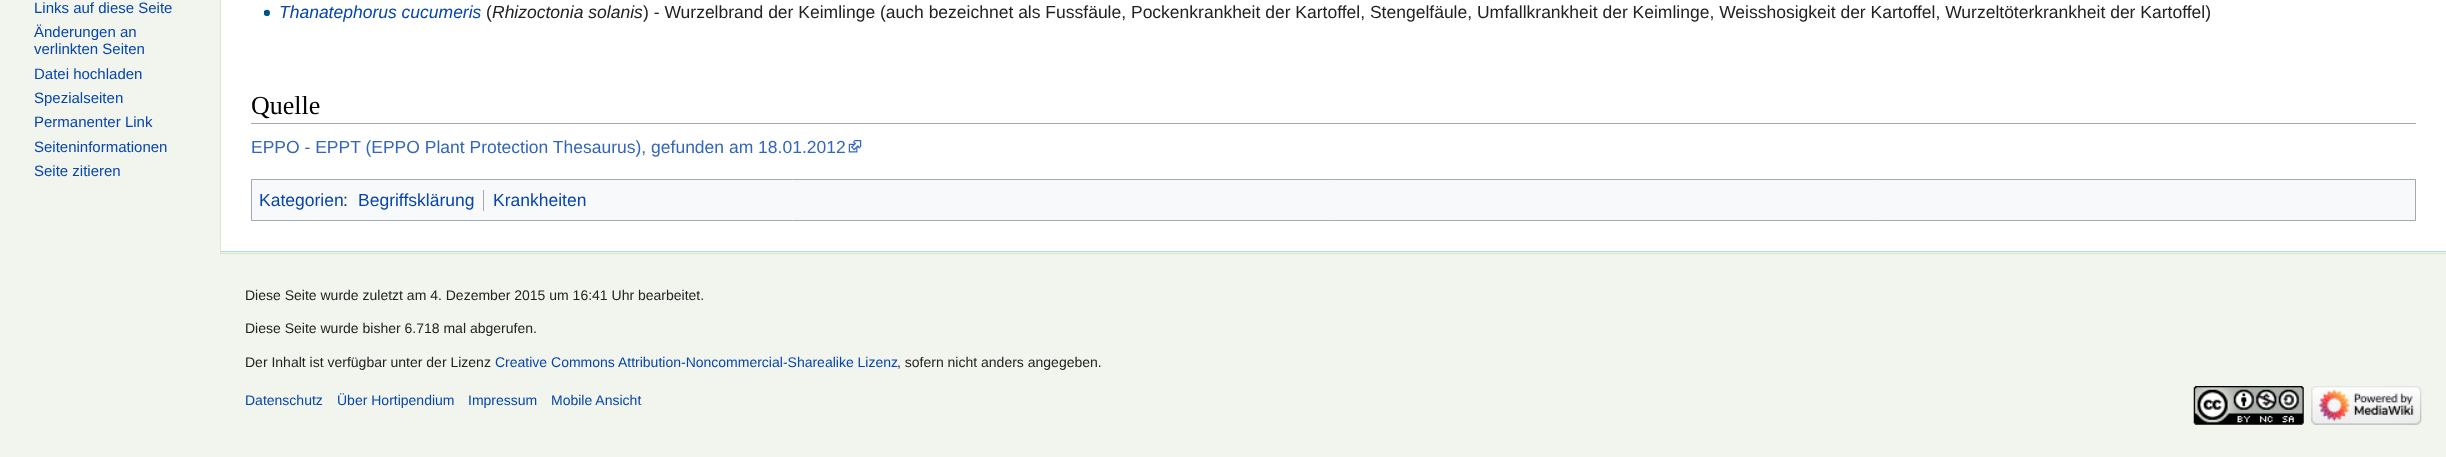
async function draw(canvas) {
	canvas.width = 2446;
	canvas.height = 457;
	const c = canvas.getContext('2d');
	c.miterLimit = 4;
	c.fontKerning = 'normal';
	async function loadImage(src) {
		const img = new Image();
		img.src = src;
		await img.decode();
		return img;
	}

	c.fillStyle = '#f2f5ed';
	c.fillRect(0, 0, 2446, 457);
	c.font = '15px Liberation Sans';
	c.fillStyle = '#0645ad';
	for (const [text, x, y] of [
		['Links auf diese Seite', 34, 13],
		['Änderungen an', 34, 37],
		['verlinkten Seiten', 34, 54],
		['Datei hochladen', 34, 79],
		['Spezialseiten', 34, 103],
		['Permanenter Link', 34, 127],
		['Seiteninformationen', 34, 152],
		['Seite zitieren', 34, 176],
	]) {
		c.fillText(text, x, y);
	}
	for (const [x, y, w, h, color] of [
		[221, 0, 2225, 251, '#fff'],
		[220, 251, 2226, 1, '#a7d7f9'],
		[220, 0, 1, 253, '#d9e8c0'],
	]) {
		c.fillStyle = color;
		c.fillRect(x, y, w, h);
	}
	c.drawImage(await loadImage('img1.png'), 264, 9, 6, 7);
	c.font = 'italic 17.5px Liberation Sans';
	c.fillStyle = '#0645ad';
	c.fillText('Thanatephorus cucumeris', 279, 18);
	c.font = '17.5px Liberation Sans';
	c.fillStyle = '#222';
	c.fillText('(', 486, 18);
	c.font = 'italic 17.5px Liberation Sans';
	c.fillText('Rhizoctonia solanis', 492, 18);
	c.font = '17.5px Liberation Sans';
	c.fillText(') - Wurzelbrand der Keimlinge (auch bezeichnet als Fussfäule, Pockenkrankheit der Kartoffel, Stengelfäule, Umfallkrankheit der Keimlinge, Weisshosigkeit der Kartoffel, Wurzeltöterkrankheit der Kartoffel)', 643, 18);
	c.fillStyle = '#a2a9b1';
	c.fillRect(251, 123, 2165, 1);
	c.font = '26px Liberation Serif';
	c.fillStyle = '#000';
	c.fillText('Quelle', 251, 114);
	c.font = '17.5px Liberation Sans';
	c.fillStyle = '#36b';
	c.fillText('EPPO - EPPT (EPPO Plant Protection Thesaurus), gefunden am 18.01.2012', 251, 153);
	c.drawImage(await loadImage('img2.png'), 848, 140, 14, 13);
	c.fillStyle = '#f8f9fa';
	c.beginPath();
	c.rect(251.5, 179.5, 2164, 41);
	c.fill();
	c.strokeStyle = '#a2a9b1';
	c.stroke();
	c.fillStyle = '#0645ad';
	c.fillText('Kategorien', 259, 206);
	c.fillStyle = '#222';
	c.fillText(':', 343, 206);
	c.fillStyle = '#0645ad';
	c.fillText('Begriffsklärung', 358, 206);
	c.fillStyle = '#a2a9b1';
	c.fillRect(483, 190, 1, 21);
	c.fillStyle = '#0645ad';
	c.fillText('Krankheiten', 493, 206);
	c.fillStyle = '#d9e8c0';
	c.fillRect(220, 253, 2226, 1);
	c.font = '14px Liberation Sans';
	c.fillStyle = '#222';
	for (const [text, x, y] of [
		['Diese Seite wurde zuletzt am 4. Dezember 2015 um 16:41 Uhr bearbeitet.', 245, 300],
		['Diese Seite wurde bisher 6.718 mal abgerufen.', 245, 333],
		['Der Inhalt ist verfügbar unter der Lizenz', 245, 367],
	]) {
		c.fillText(text, x, y);
	}
	c.fillStyle = '#0645ad';
	c.fillText('Creative Commons Attribution-Noncommercial-Sharealike Lizenz', 495, 367);
	c.fillStyle = '#222';
	c.fillText(', sofern nicht anders angegeben.', 897, 367);
	c.fillStyle = '#0645ad';
	for (const [text, x, y] of [
		['Datenschutz', 245, 405],
		['Über Hortipendium', 337, 405],
		['Impressum', 468, 405],
		['Mobile Ansicht', 551, 405],
	]) {
		c.fillText(text, x, y);
	}
	c.drawImage(await loadImage('img3.png'), 2193, 386, 111, 39);
	c.drawImage(await loadImage('img4.png'), 2311, 386, 111, 39);
}

draw(document.querySelector('canvas'));
